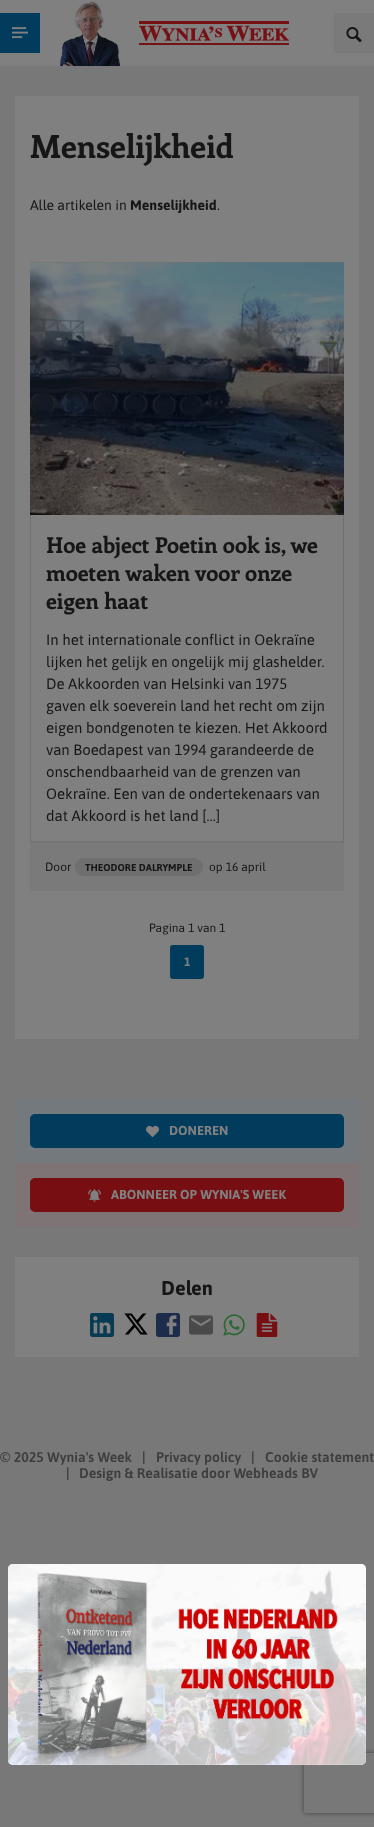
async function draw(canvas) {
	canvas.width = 374;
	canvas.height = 1827;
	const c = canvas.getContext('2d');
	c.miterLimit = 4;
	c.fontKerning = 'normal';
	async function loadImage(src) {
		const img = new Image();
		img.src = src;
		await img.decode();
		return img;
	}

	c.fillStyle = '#787878';
	c.fillRect(0, 0, 374, 1827);
	c.fillStyle = '#808080';
	c.fillRect(0, 0, 374, 66);
	c.fillStyle = '#023c5d';
	c.fillRect(0, 13, 40, 40);
	c.drawImage(await loadImage('img1.png'), 12, 27, 16, 12);
	c.drawImage(await loadImage('img2.png'), 60, 1, 60, 65);
	c.drawImage(await loadImage('img3.png'), 139, 21, 150, 24);
	c.fillStyle = '#7a7a7a';
	c.fillRect(334, 13, 40, 40);
	c.drawImage(await loadImage('img4.png'), 346, 27, 16, 16);
	c.fillStyle = '#808080';
	c.fillRect(15, 96, 344, 943);
	c.font = 'bold 32px Enriqueta';
	c.fillStyle = '#161616';
	c.fillText('Menselijkheid', 30, 158);
	c.font = '14px Asap';
	c.fillText('Alle artikelen in', 30, 210);
	c.font = 'bold 14px Asap';
	c.fillText('Menselijkheid', 130, 210);
	c.font = '14px Asap';
	c.fillText('.', 217, 210);
	c.fillStyle = '#6f6f6f';
	c.fillRect(30, 262, 314, 1);
	c.drawImage(await loadImage('img5.png'), 30, 262, 314, 253);
	c.fillRect(343, 515, 1, 328);
	c.fillRect(30, 515, 1, 328);
	c.font = 'bold 22px Enriqueta';
	c.fillStyle = '#161616';
	for (const [text, x, y] of [
		['Hoe abject Poetin ook is, we', 46, 553],
		['moeten waken voor onze', 46, 581],
		['eigen haat', 46, 609],
	]) {
		c.fillText(text, x, y);
	}
	c.font = '15px Asap';
	for (const [text, x, y] of [
		['In het internationale conflict in Oekraïne', 46, 645],
		['lijken het gelijk en ongelijk mij glashelder.', 46, 667],
		['De Akkoorden van Helsinki van 1975', 46, 689],
		['gaven elk soeverein land het recht om zijn', 46, 711],
		['eigen bondgenoten te kiezen. Het Akkoord', 46, 733],
		['van Boedapest van 1994 garandeerde de', 46, 755],
		['onschendbaarheid van de grenzen van', 46, 777],
		['Oekraïne. Een van de ondertekenaars van', 46, 799],
		['dat Akkoord is het land […]', 46, 821],
	]) {
		c.fillText(text, x, y);
	}
	c.fillStyle = '#7a7a7a';
	c.fillRect(30, 843, 314, 48);
	c.fillStyle = '#757575';
	c.fillRect(30, 841, 314, 2);
	c.font = '12px Asap';
	c.fillStyle = '#161616';
	c.fillText('Door', 45, 871);
	c.fillStyle = '#6f6f6f';
	c.beginPath();
	c.roundRect(75, 858, 128, 18, 9);
	c.fill();
	c.font = 'bold 10px Asap';
	c.fillStyle = '#161616';
	c.fillText('THEODORE DALRYMPLE', 85, 871);
	c.font = '12px Asap';
	c.fillText('op 16 april', 209, 871);
	c.fillText('Pagina 1 van 1', 149, 932);
	c.fillStyle = '#023c5d';
	c.beginPath();
	c.roundRect(170, 945, 34, 34, 3);
	c.fill();
	c.font = 'bold 12px Asap';
	c.fillStyle = '#808080';
	c.fillText('1', 184, 966);
	c.fillStyle = '#73797c';
	c.fillRect(15, 1099, 344, 64);
	c.fillStyle = '#023c5d';
	c.beginPath();
	c.roundRect(31, 1115, 312, 32, 4);
	c.fill();
	c.strokeStyle = '#023c5d';
	c.lineWidth = 2;
	c.stroke();
	c.drawImage(await loadImage('img6.png'), 146, 1125, 13, 13);
	c.font = 'bold 13px Asap';
	c.fillStyle = '#808080';
	c.fillText('DONEREN', 169, 1135);
	c.fillStyle = '#7f7475';
	c.fillRect(15, 1163, 344, 64);
	c.fillStyle = '#770e12';
	c.beginPath();
	c.roundRect(31, 1179, 312, 32, 4);
	c.fill();
	c.strokeStyle = '#770e12';
	c.stroke();
	c.drawImage(await loadImage('img7.png'), 88, 1189, 13, 13);
	c.fillStyle = '#808080';
	c.fillText('ABONNEER OP WYNIA\'S WEEK', 111, 1199);
	c.fillRect(15, 1257, 344, 100);
	c.font = 'bold 20px Asap';
	c.fillStyle = '#161616';
	c.fillText('Delen', 161, 1295);
	c.drawImage(await loadImage('img8.png'), 90, 1313, 24, 24);
	c.drawImage(await loadImage('img9.png'), 124, 1313, 24, 22);
	c.drawImage(await loadImage('img10.png'), 156, 1313, 24, 24);
	c.drawImage(await loadImage('img11.png'), 189, 1315, 24, 20);
	c.drawImage(await loadImage('img12.png'), 223, 1314, 22, 22);
	c.drawImage(await loadImage('img13.png'), 256, 1313, 22, 24);
	c.font = '600 14px Asap';
	c.fillStyle = '#3d3d3d';
	for (const [text, x, y] of [
		['© 2025 Wynia\'s Week', 0, 1462],
		['|', 142, 1462],
		['Privacy policy', 156, 1462],
		['|', 251, 1462],
		['Cookie statement', 265, 1462],
		['|', 66, 1478],
		['Design & Realisatie door Webheads BV', 79, 1478],
	]) {
		c.fillText(text, x, y);
	}
	c.save();
	c.beginPath();
	c.moveTo(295, 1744);
	c.lineTo(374, 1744);
	c.lineTo(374, 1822);
	c.lineTo(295, 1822);
	c.closePath();
	c.moveTo(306, 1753);
	c.lineTo(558, 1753);
	c.bezierCurveTo(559, 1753, 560, 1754, 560, 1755);
	c.lineTo(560, 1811);
	c.bezierCurveTo(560, 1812, 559, 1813, 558, 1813);
	c.lineTo(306, 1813);
	c.bezierCurveTo(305, 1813, 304, 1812, 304, 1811);
	c.lineTo(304, 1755);
	c.bezierCurveTo(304, 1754, 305, 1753, 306, 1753);
	c.closePath();
	c.clip('evenodd');
	c.fillStyle = '#404040';
	c.filter = 'blur(2.5px)';
	c.beginPath();
	c.roundRect(304, 1753, 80, 60, 2);
	c.fill();
	c.filter = 'none';
	c.restore();
	c.fillStyle = '#fff';
	c.beginPath();
	c.roundRect(8, 1564, 358, 201, 5);
	c.fill();
	c.drawImage(await loadImage('img14.png'), 8, 1564, 358, 201);
}

draw(document.querySelector('canvas'));
